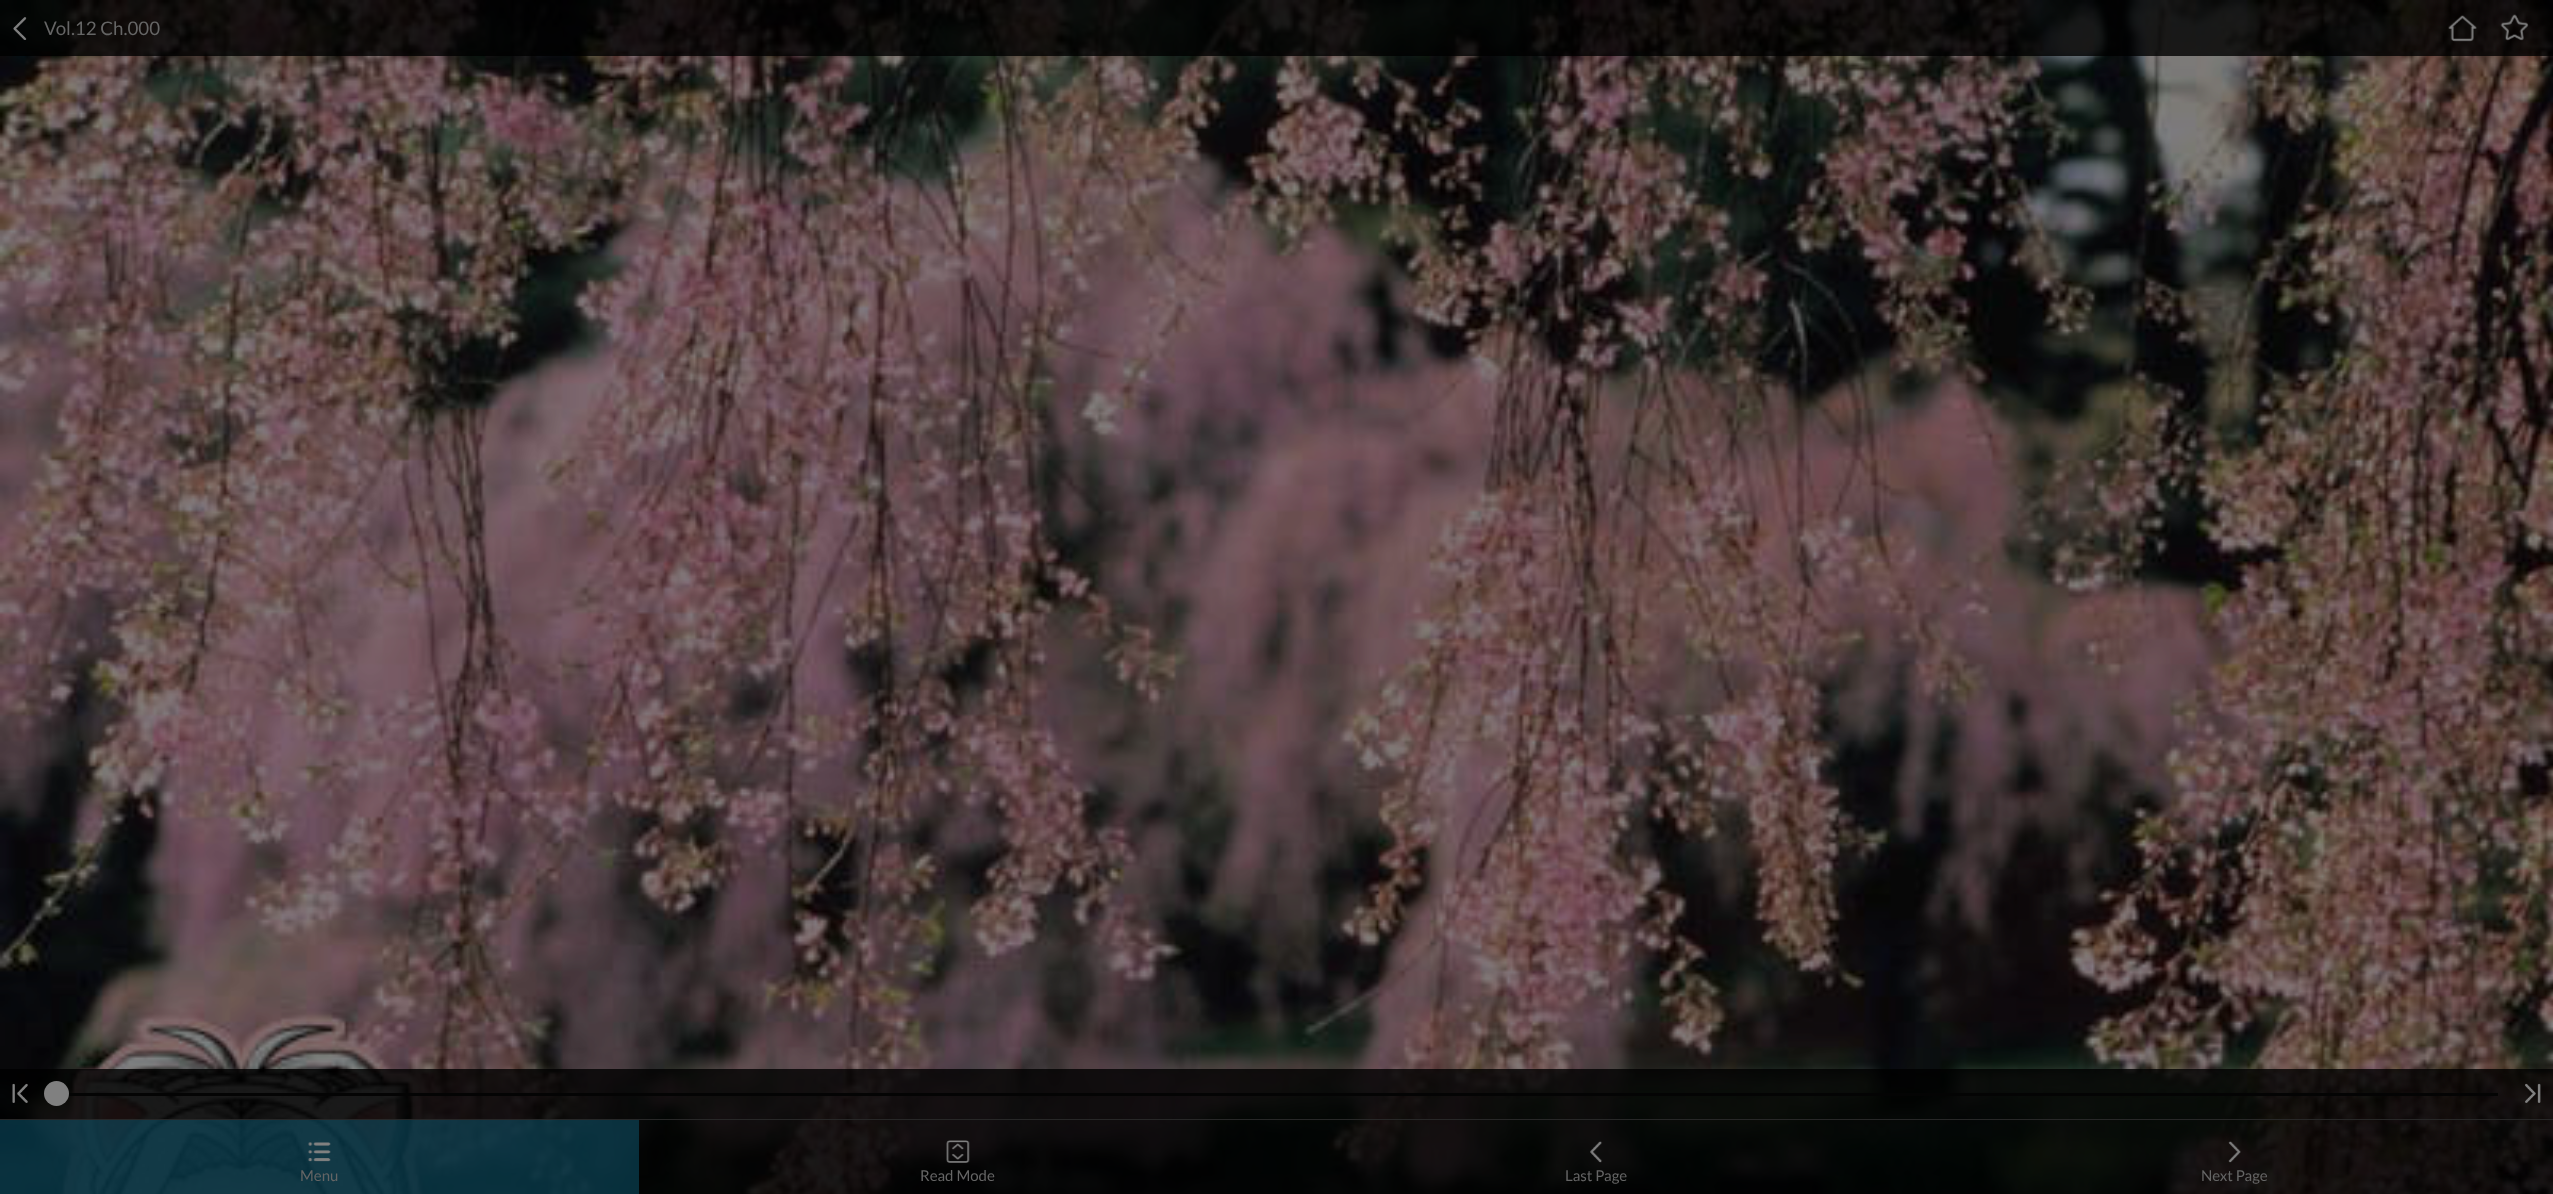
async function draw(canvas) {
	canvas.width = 2553;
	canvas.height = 1194;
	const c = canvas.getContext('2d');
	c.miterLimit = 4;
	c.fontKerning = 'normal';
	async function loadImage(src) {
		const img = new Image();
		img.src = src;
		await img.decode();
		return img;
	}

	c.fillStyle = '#fff';
	c.fillRect(0, 0, 2553, 1194);
	c.drawImage(await loadImage('img1.png'), 0, 0, 2553, 1194);
	c.fillStyle = '#000000cc';
	c.fillRect(0, 0, 2553, 56);
	c.drawImage(await loadImage('img2.png'), 13, 17, 14, 23);
	c.font = '18.75px Lato';
	c.fillStyle = '#656565';
	c.fillText('Vol.12 Ch.000', 44, 35);
	c.drawImage(await loadImage('img3.png'), 2448, 15, 29, 27);
	c.drawImage(await loadImage('img4.png'), 2500, 14, 29, 27);
	c.fillStyle = '#151515';
	c.fillRect(68, 1093, 2430, 3);
	c.fillStyle = '#000000cc';
	c.fillRect(0, 1069, 2553, 50);
	c.drawImage(await loadImage('img5.png'), 12, 1083, 16, 20);
	c.fillStyle = '#808080';
	c.beginPath();
	c.arc(56.5, 1093.5, 12.5, 0, 2 * Math.PI);
	c.fill();
	c.drawImage(await loadImage('img6.png'), 2525, 1083, 16, 20);
	for (const [x, y, w, h, color] of [
		[0, 1120, 2553, 74, '#000000cc'],
		[0, 1119, 2553, 1, '#272727'],
		[0, 1120, 639, 74, '#0c5a7380'],
	]) {
		c.fillStyle = color;
		c.fillRect(x, y, w, h);
	}
	c.drawImage(await loadImage('img7.png'), 308, 1142, 23, 20);
	c.font = '15px Lato';
	c.fillStyle = '#656565';
	c.fillText('Menu', 300, 1181);
	c.drawImage(await loadImage('img8.png'), 946, 1140, 24, 23);
	c.fillText('Read Mode', 920, 1181);
	c.drawImage(await loadImage('img9.png'), 1590, 1141, 13, 22);
	c.fillText('Last Page', 1565, 1181);
	c.drawImage(await loadImage('img10.png'), 2228, 1141, 13, 22);
	c.fillText('Next Page', 2201, 1181);
}

draw(document.querySelector('canvas'));
